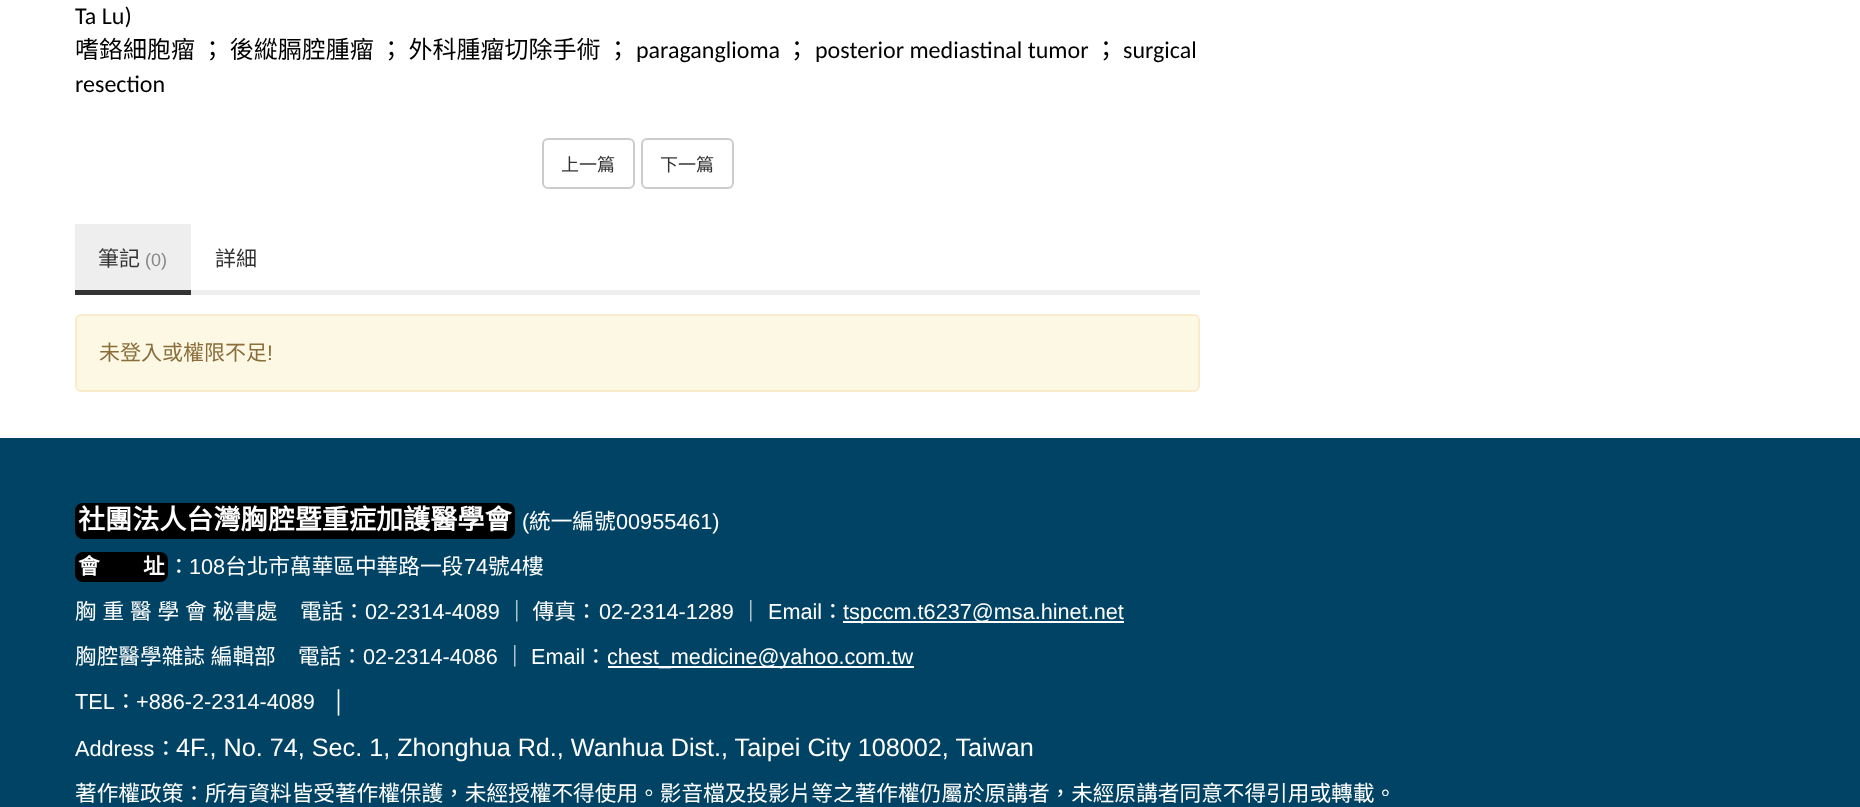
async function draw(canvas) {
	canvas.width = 1860;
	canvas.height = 807;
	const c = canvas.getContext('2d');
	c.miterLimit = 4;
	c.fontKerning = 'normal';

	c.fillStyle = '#fff';
	c.fillRect(0, 0, 1860, 807);
	c.font = '24px Carlito';
	c.fillStyle = '#000';
	c.fillText('Ta Lu)', 75, 24);
	c.font = '24px Noto Sans CJK TC';
	c.fillText('嗜鉻細胞瘤 ； 後縱膈腔腫瘤 ； 外科腫瘤切除手術 ；', 75, 58);
	c.font = '24px Carlito';
	c.fillText('paraganglioma', 636, 58);
	c.font = '24px Noto Sans CJK TC';
	c.fillText('；', 785, 58);
	c.font = '24px Carlito';
	c.fillText('posterior mediastinal tumor', 815, 58);
	c.font = '24px Noto Sans CJK TC';
	c.fillText('；', 1094, 58);
	c.font = '24px Carlito';
	c.fillText('surgical', 1123, 58);
	c.fillText('resection', 75, 92);
	c.beginPath();
	c.roundRect(543, 139, 91, 49, 5);
	c.strokeStyle = '#ccc';
	c.lineWidth = 2;
	c.stroke();
	c.font = '18px Noto Sans CJK TC';
	c.fillStyle = '#333';
	c.fillText('上一篇', 561, 171);
	c.beginPath();
	c.roundRect(642, 139, 91, 49, 5);
	c.stroke();
	c.fillText('下一篇', 660, 171);
	c.fillStyle = '#eee';
	c.fillRect(75, 224, 116, 66);
	c.fillStyle = '#333';
	c.fillRect(75, 290, 116, 5);
	c.font = '21px Noto Sans CJK TC';
	c.fillText('筆記', 98, 266);
	c.font = '18px Liberation Sans';
	c.fillStyle = '#888';
	c.fillText('(0)', 145, 266);
	c.font = '21px Noto Sans CJK TC';
	c.fillStyle = '#333';
	c.fillText('詳細', 215, 266);
	c.fillStyle = '#eee';
	c.fillRect(191, 290, 1009, 5);
	c.fillStyle = '#fcf8e3';
	c.beginPath();
	c.roundRect(76, 315, 1123, 76, 5);
	c.fill();
	c.strokeStyle = '#faebcc';
	c.stroke();
	c.fillStyle = '#8a6d3b';
	c.fillText('未登入或權限不足', 99, 360);
	c.font = '21px Liberation Sans';
	c.fillText('!', 267, 360);
	c.fillStyle = '#004364';
	c.fillRect(0, 438, 1860, 369);
	c.fillStyle = '#000';
	c.beginPath();
	c.roundRect(75, 503, 440, 36, 8);
	c.fill();
	c.font = 'bold 27.1px Noto Sans CJK TC';
	c.fillStyle = '#fff';
	c.fillText('社團法人台灣胸腔暨重症加護醫學會', 78, 529);
	c.font = '21.67px Liberation Sans';
	c.fillText('(', 522, 529);
	c.font = '21.67px Noto Sans CJK TC';
	c.fillText('統一編號', 529, 529);
	c.font = '21.67px Liberation Sans';
	c.fillText('00955461)', 616, 529);
	c.fillStyle = '#000';
	c.beginPath();
	c.roundRect(75, 552, 93, 30, 8);
	c.fill();
	c.font = 'bold 21.67px Noto Sans CJK TC';
	c.fillStyle = '#fff';
	c.fillText('會　　址', 78, 574);
	c.font = '21.67px Noto Sans CJK TC';
	c.fillText('：', 168, 574);
	c.font = '21.67px Liberation Sans';
	c.fillText('108', 189, 574);
	c.font = '21.67px Noto Sans CJK TC';
	c.fillText('台北市萬華區中華路一段', 225, 574);
	c.font = '21.67px Liberation Sans';
	c.fillText('74', 464, 574);
	c.font = '21.67px Noto Sans CJK TC';
	c.fillText('號', 488, 574);
	c.font = '21.67px Liberation Sans';
	c.fillText('4', 510, 574);
	c.font = '21.67px Noto Sans CJK TC';
	c.fillText('樓', 522, 574);
	c.wordSpacing = '1px';
	c.fillText('胸 重 醫 學 會 秘書處', 75, 619);
	c.wordSpacing = '0px';
	c.fillText('電話：', 300, 619);
	c.font = '21.67px Liberation Sans';
	c.fillText('02-2314-4089', 365, 619);
	c.font = '21.67px Noto Sans CJK TC';
	c.fillText('｜ 傳真：', 506, 619);
	c.font = '21.67px Liberation Sans';
	c.fillText('02-2314-1289', 599, 619);
	c.font = '21.67px Noto Sans CJK TC';
	c.fillText('｜', 740, 619);
	c.font = '21.67px Liberation Sans';
	c.fillText('Email', 768, 619);
	c.font = '21.67px Noto Sans CJK TC';
	c.fillText('：', 822, 619);
	c.fillRect(843, 621, 281, 2);
	c.font = '21.67px Liberation Sans';
	c.fillText('tspccm.t6237@msa.hinet.net', 843, 619);
	c.wordSpacing = '1px';
	c.font = '21.67px Noto Sans CJK TC';
	c.fillText('胸腔醫學雜誌 編輯部', 75, 664);
	c.wordSpacing = '0px';
	c.fillText('電話：', 298, 664);
	c.font = '21.67px Liberation Sans';
	c.fillText('02-2314-4086', 363, 664);
	c.font = '21.67px Noto Sans CJK TC';
	c.fillText('｜', 504, 664);
	c.font = '21.67px Liberation Sans';
	c.fillText('Email', 531, 664);
	c.font = '21.67px Noto Sans CJK TC';
	c.fillText('：', 585, 664);
	c.fillRect(608, 666, 306, 2);
	c.font = '21.67px Liberation Sans';
	c.fillText('chest_medicine@yahoo.com.tw', 607, 664);
	c.fillText('TEL', 75, 709);
	c.font = '21.67px Noto Sans CJK TC';
	c.fillText('：', 115, 709);
	c.font = '21.67px Liberation Sans';
	c.fillText('+886-2-2314-4089   │', 136, 709);
	c.fillText('Address', 75, 756);
	c.font = '21.67px Noto Sans CJK TC';
	c.fillText('：', 155, 756);
	c.font = '25.2px Liberation Sans';
	c.fillText('4F., No. 74, Sec. 1, Zhonghua Rd., Wanhua Dist., Taipei City 108002, Taiwan', 176, 756);
	c.font = '21.67px Noto Sans CJK TC';
	c.fillText('著作權政策：所有資料皆受著作權保護，未經授權不得使用。影音檔及投影片等之著作權仍屬於原講者，未經原講者同意不得引用或轉載。', 75, 801);
}

draw(document.querySelector('canvas'));
